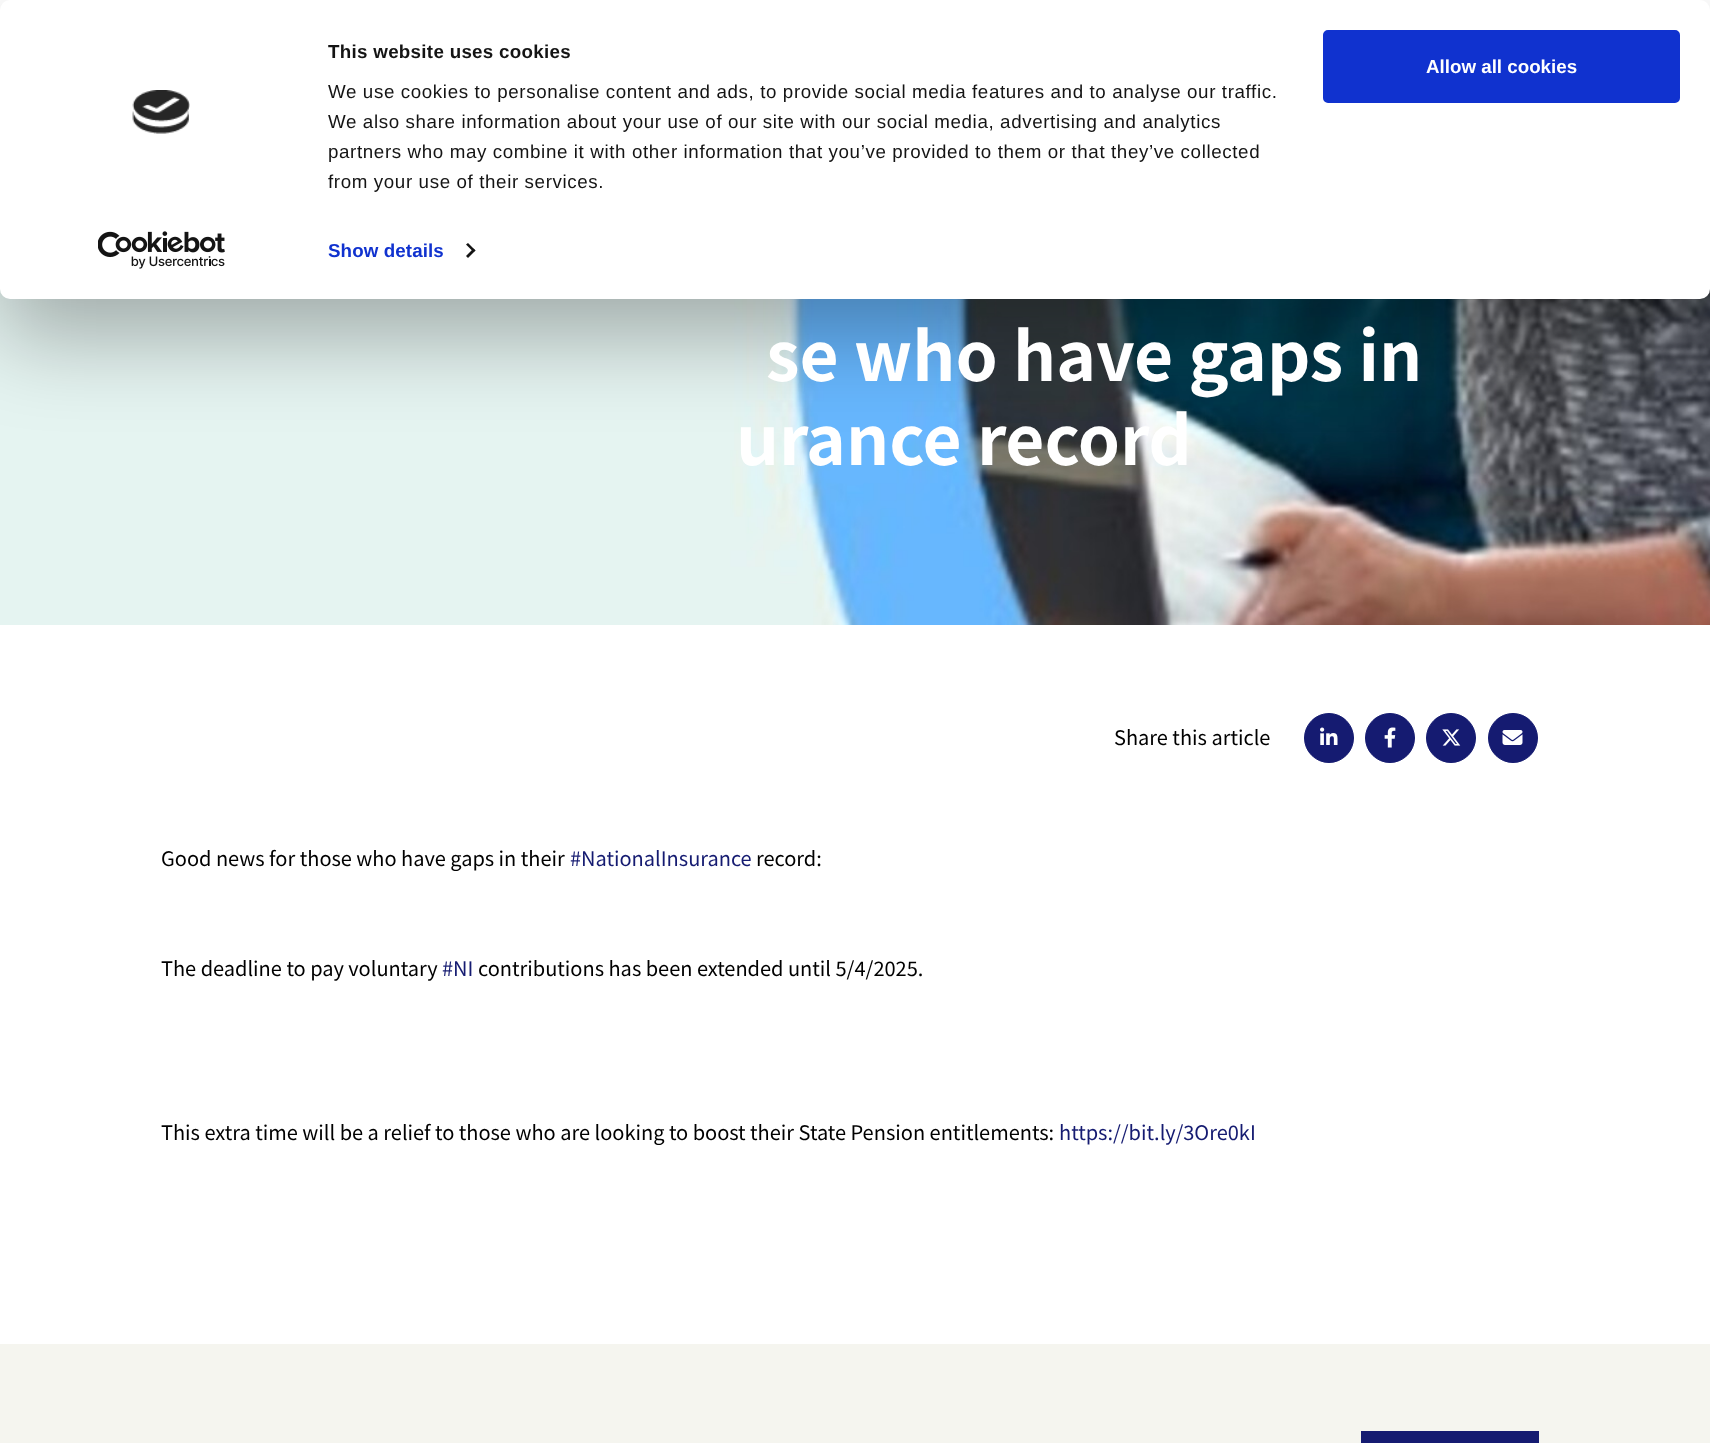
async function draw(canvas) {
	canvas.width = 1710;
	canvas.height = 1443;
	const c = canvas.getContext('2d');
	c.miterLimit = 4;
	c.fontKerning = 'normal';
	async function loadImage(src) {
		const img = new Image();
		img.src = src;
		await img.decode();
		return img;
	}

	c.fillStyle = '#fff';
	c.fillRect(0, 0, 1710, 1443);
	c.drawImage(await loadImage('img3.png'), 0, 289, 1710, 336);
	c.fillStyle = '#0000004d';
	c.filter = 'blur(44px)';
	c.beginPath();
	c.roundRect(0, 38, 1710, 298, 10);
	c.fill();
	c.filter = 'none';
	c.fillStyle = '#fff';
	c.beginPath();
	c.roundRect(0, 0, 1710, 299, 10);
	c.fill();
	c.letterSpacing = '0.3px';
	c.font = 'bold 18.75px Liberation Sans';
	c.fillStyle = '#141414';
	c.fillText('This website uses cookies', 328, 58);
	c.letterSpacing = '0.62px';
	c.font = '18.75px Liberation Sans';
	for (const [text, x, y] of [
		['We use cookies to personalise content and ads, to provide social media features and to analyse our traffic.', 328, 98],
		['We also share information about your use of our site with our social media, advertising and analytics', 328, 128],
		['partners who may combine it with other information that you’ve provided to them or that they’ve collected', 328, 158],
		['from your use of their services.', 328, 188],
	]) {
		c.fillText(text, x, y);
	}
	c.letterSpacing = '0.1px';
	c.font = 'bold 18.75px Liberation Sans';
	c.fillStyle = '#1032cf';
	c.fillText('Show details', 328, 257);
	c.fillStyle = '#141414';
	c.beginPath();
	c.moveTo(468, 243);
	c.lineTo(475.5, 250.5);
	c.lineTo(473.5, 252);
	c.lineTo(466, 244.5);
	c.closePath();
	c.fill();
	c.beginPath();
	c.moveTo(473.5, 248.5);
	c.lineTo(475.5, 250.5);
	c.lineTo(468, 258);
	c.lineTo(466, 256);
	c.closePath();
	c.fill();
	c.fillStyle = '#1032cf';
	c.beginPath();
	c.roundRect(1324.5, 31.5, 354, 70, 3.5);
	c.fill();
	c.strokeStyle = '#1032cf';
	c.lineWidth = 3;
	c.stroke();
	c.letterSpacing = '0px';
	c.fillStyle = '#fff';
	c.fillText('Allow all cookies', 1426, 73);
	c.drawImage(await loadImage('img1.png'), 132, 90, 58, 44);
	c.drawImage(await loadImage('img2.png'), 98, 231, 127, 38);
	c.font = 'bold 67.5px Noto Sans JP';
	c.fillText('se who have gaps in', 766, 381);
	c.fillText('urance record', 736, 465);
	c.font = '100 20px Noto Sans JP';
	c.fillStyle = '#000';
	c.fillText('Share this article', 1114, 745);
	c.fillStyle = '#151b71';
	c.beginPath();
	c.arc(1329, 738, 24.5, 0, 2 * Math.PI);
	c.fill();
	c.strokeStyle = '#151b71';
	c.lineWidth = 1;
	c.stroke();
	c.drawImage(await loadImage('img4.png'), 1320, 727, 18, 18);
	c.beginPath();
	c.arc(1390, 738, 24.5, 0, 2 * Math.PI);
	c.fill();
	c.stroke();
	c.drawImage(await loadImage('img5.png'), 1384, 727, 12, 21);
	c.beginPath();
	c.arc(1451, 738, 24.5, 0, 2 * Math.PI);
	c.fill();
	c.stroke();
	c.drawImage(await loadImage('img6.png'), 1442, 729, 19, 17);
	c.beginPath();
	c.arc(1513, 738, 24.5, 0, 2 * Math.PI);
	c.fill();
	c.stroke();
	c.drawImage(await loadImage('img7.png'), 1502, 730, 21, 15);
	c.fillStyle = '#000';
	c.fillText('Good news for those who have gaps in their', 161, 866);
	c.fillStyle = '#151b71';
	c.fillText('#NationalInsurance', 570, 866);
	c.fillStyle = '#000';
	c.fillText('record:', 756, 866);
	c.fillText('The deadline to pay voluntary', 161, 976);
	c.fillStyle = '#151b71';
	c.fillText('#NI', 442, 976);
	c.fillStyle = '#000';
	c.fillText('contributions has been extended until 5/4/2025.', 478, 976);
	c.fillText('This extra time will be a relief to those who are looking to boost their State Pension entitlements:', 161, 1140);
	c.fillStyle = '#151b71';
	c.fillText('https://bit.ly/3Ore0kI', 1059, 1140);
	c.fillStyle = '#f5f5ef';
	c.fillRect(0, 1344, 1710, 99);
	c.fillStyle = '#151b71';
	c.fillRect(1361, 1431, 178, 12);
}

draw(document.querySelector('canvas'));
